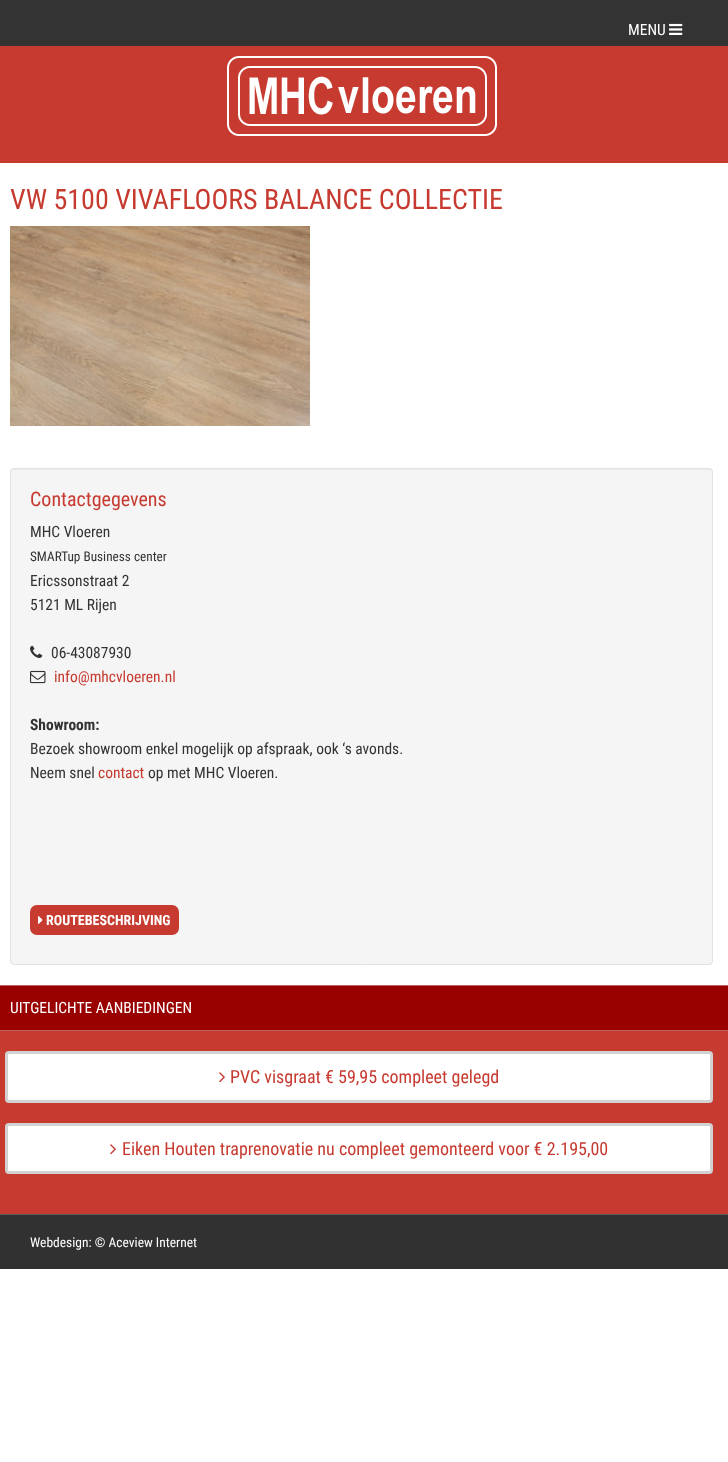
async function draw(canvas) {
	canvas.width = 728;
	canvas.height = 1462;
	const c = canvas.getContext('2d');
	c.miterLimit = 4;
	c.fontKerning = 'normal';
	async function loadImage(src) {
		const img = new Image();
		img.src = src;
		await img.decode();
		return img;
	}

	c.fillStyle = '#fff';
	c.fillRect(0, 0, 728, 1462);
	c.fillStyle = '#333';
	c.fillRect(0, 0, 728, 46);
	c.font = '15.5px Roboto Condensed';
	c.fillStyle = '#fff';
	c.fillText('MENU', 628, 35);
	c.drawImage(await loadImage('img1.png'), 669, 23, 14, 12);
	c.fillStyle = '#c63a30';
	c.fillRect(0, 46, 728, 117);
	c.drawImage(await loadImage('img2.png'), 227, 56, 270, 80);
	c.font = '28px Roboto Condensed';
	c.fillText('VW 5100 VIVAFLOORS BALANCE COLLECTIE', 10, 209);
	c.drawImage(await loadImage('img3.png'), 10, 226, 300, 200);
	c.fillStyle = '#f5f5f5';
	c.beginPath();
	c.roundRect(10, 468, 703, 497, 4);
	c.fill();
	c.fillStyle = '#e9e9e9';
	c.beginPath();
	c.moveTo(14, 470);
	c.lineTo(709, 470);
	c.bezierCurveTo(711, 470, 712, 471, 712, 473);
	c.bezierCurveTo(712, 471, 711, 469, 709, 469);
	c.lineTo(14, 469);
	c.bezierCurveTo(12, 469, 11, 471, 11, 473);
	c.bezierCurveTo(11, 471, 12, 470, 14, 470);
	c.closePath();
	c.fill();
	c.beginPath();
	c.roundRect(10.5, 468.5, 702, 496, 3.5);
	c.strokeStyle = '#e3e3e3';
	c.stroke();
	c.font = '20px Roboto Condensed';
	c.fillStyle = '#c63a30';
	c.fillText('Contactgegevens', 30, 506);
	c.font = '15.5px Roboto Condensed';
	c.fillStyle = '#333';
	c.fillText('MHC Vloeren', 30, 537);
	c.font = '13.25px Roboto Condensed';
	c.fillText('SMARTup Business center', 30, 561);
	c.font = '15.5px Roboto Condensed';
	c.fillText('Ericssonstraat 2', 30, 586);
	c.fillText('5121 ML Rijen', 30, 610);
	c.drawImage(await loadImage('img4.png'), 30, 645, 13, 13);
	c.fillText('06-43087930', 51, 658);
	c.drawImage(await loadImage('img5.png'), 30, 670, 16, 14);
	c.fillStyle = '#c63a30';
	c.fillText('info@mhcvloeren.nl', 54, 682);
	c.font = 'bold 15.5px Roboto Condensed';
	c.fillStyle = '#333';
	c.fillText('Showroom:', 30, 730);
	c.font = '15.5px Roboto Condensed';
	c.fillText('Bezoek showroom enkel mogelijk op afspraak, ook ‘s avonds.', 30, 754);
	c.fillText('Neem snel', 30, 778);
	c.fillStyle = '#c63a30';
	c.fillText('contact', 98, 778);
	c.fillStyle = '#333';
	c.fillText('op met MHC Vloeren.', 148, 778);
	c.fillStyle = '#c63a30';
	c.beginPath();
	c.roundRect(30, 905, 149, 30, 7);
	c.fill();
	c.drawImage(await loadImage('img6.png'), 38, 916, 5, 8);
	c.font = 'bold 14px Roboto Condensed';
	c.fillStyle = '#fff';
	c.fillText('ROUTEBESCHRIJVING', 46, 925);
	for (const [x, y, w, h, color] of [
		[0, 986, 728, 44, '#900'],
		[0, 985, 728, 1, '#bf5e5e'],
		[0, 1030, 728, 1, '#bf5e5e'],
	]) {
		c.fillStyle = color;
		c.fillRect(x, y, w, h);
	}
	c.font = '15.5px Roboto Condensed';
	c.fillStyle = '#fff';
	c.fillText('UITGELICHTE AANBIEDINGEN', 10, 1013);
	c.fillStyle = '#c63a30';
	c.fillRect(0, 1031, 728, 183);
	c.fillStyle = '#fff';
	c.beginPath();
	c.roundRect(6.5, 1052.5, 705, 49, 2.5);
	c.fill();
	c.strokeStyle = '#d2d2d2';
	c.lineWidth = 3;
	c.stroke();
	c.drawImage(await loadImage('img7.png'), 219, 1072, 6, 11);
	c.font = '18px Roboto Condensed';
	c.fillStyle = '#c63a30';
	c.fillText('PVC visgraat € 59,95 compleet gelegd', 230, 1083);
	c.fillStyle = '#fff';
	c.beginPath();
	c.roundRect(6.5, 1124.5, 705, 48, 2.5);
	c.fill();
	c.stroke();
	c.drawImage(await loadImage('img7.png'), 110, 1144, 6, 11);
	c.fillStyle = '#c63a30';
	c.fillText('Eiken Houten traprenovatie nu compleet gemonteerd voor € 2.195,00', 122, 1155);
	c.fillStyle = '#313131';
	c.fillRect(0, 1215, 728, 54);
	c.fillStyle = '#5a5a5a';
	c.fillRect(0, 1214, 728, 1);
	c.font = '13.5px Roboto Condensed';
	c.fillStyle = '#fff';
	c.fillText('Webdesign: © Aceview Internet', 30, 1247);
}

draw(document.querySelector('canvas'));
